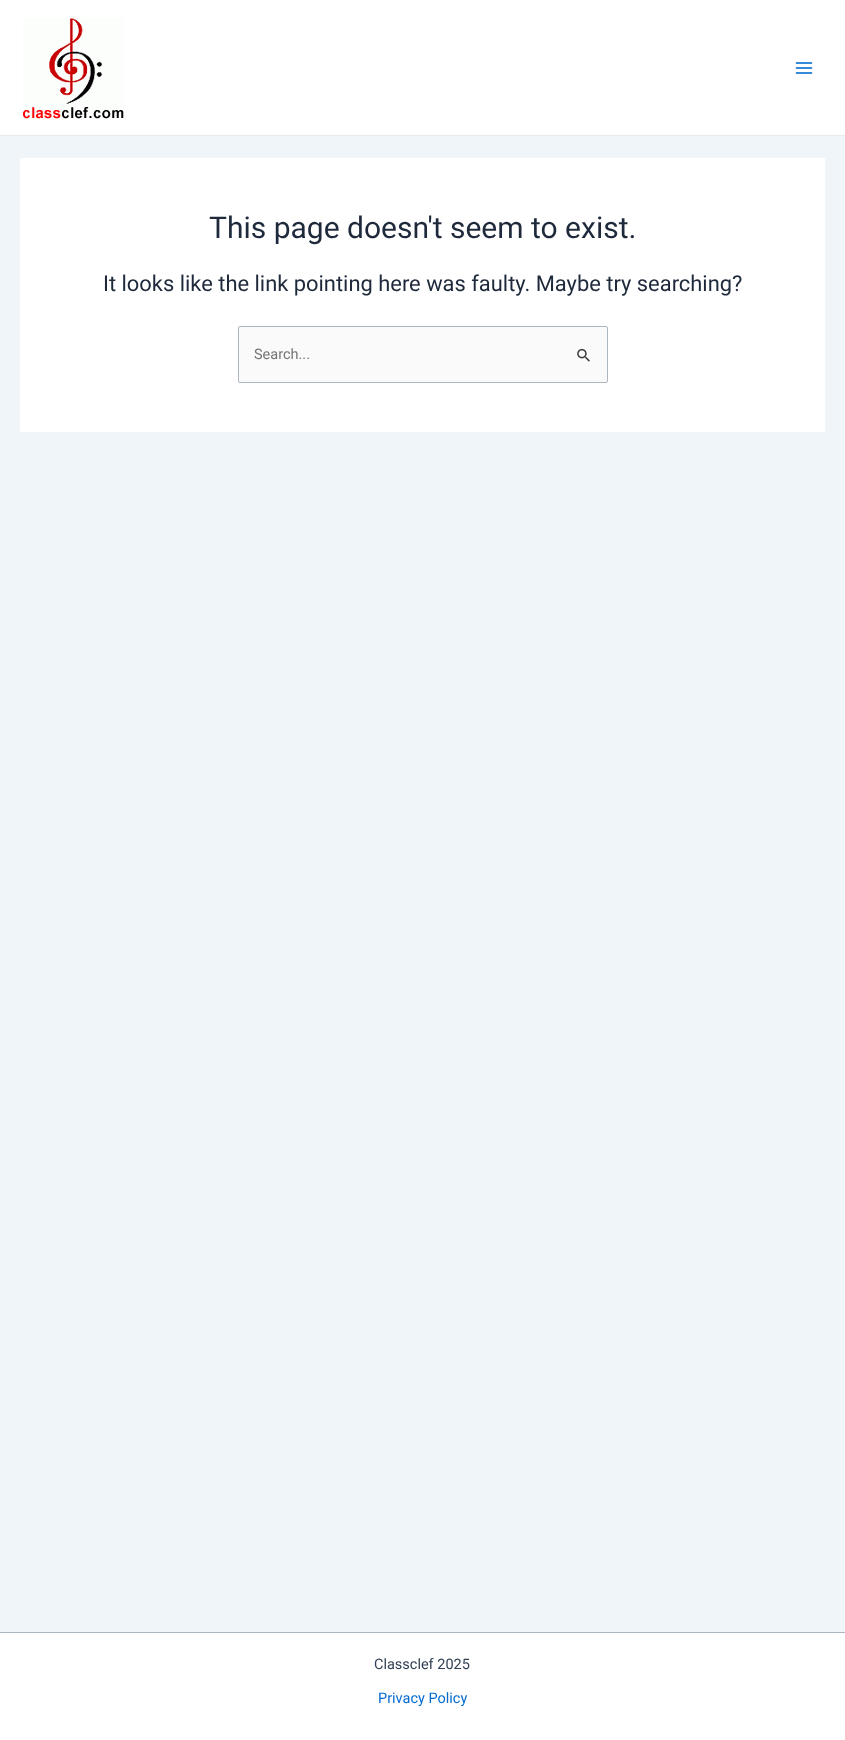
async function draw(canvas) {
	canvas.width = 845;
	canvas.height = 1740;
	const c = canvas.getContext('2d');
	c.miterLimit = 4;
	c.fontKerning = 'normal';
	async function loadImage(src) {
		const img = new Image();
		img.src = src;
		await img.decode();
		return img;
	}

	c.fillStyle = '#f0f5fa';
	c.fillRect(0, 0, 845, 1740);
	c.fillStyle = '#fff';
	c.fillRect(0, 0, 845, 135);
	c.fillStyle = '#eaeaea';
	c.fillRect(0, 135, 845, 1);
	c.drawImage(await loadImage('img1.png'), 23, 18, 101, 101);
	c.drawImage(await loadImage('img2.png'), 795, 62, 18, 12);
	c.fillStyle = '#fff';
	c.fillRect(20, 158, 805, 274);
	c.font = '30px Roboto';
	c.fillStyle = '#1e293b';
	c.fillText('This page doesn\'t seem to exist.', 209, 238);
	c.font = '21.9px Roboto';
	c.fillText('It looks like the link pointing here was faulty. Maybe try searching?', 103, 291);
	c.fillStyle = '#fafafa';
	c.beginPath();
	c.roundRect(238.5, 326.5, 369, 56, 1.5);
	c.fill();
	c.strokeStyle = '#adb6be';
	c.stroke();
	c.font = '14.5px Roboto';
	c.fillStyle = '#757575';
	c.fillText('Search...', 254, 359);
	c.drawImage(await loadImage('img3.png'), 577, 348, 13, 14);
	c.fillStyle = '#fff';
	c.fillRect(0, 1633, 845, 107);
	c.fillStyle = '#adb6be';
	c.fillRect(0, 1632, 845, 1);
	c.fillStyle = '#334155';
	c.fillText('Classclef 2025', 374, 1669);
	c.fillStyle = '#046bd2';
	c.fillText('Privacy Policy', 378, 1703);
}

draw(document.querySelector('canvas'));
